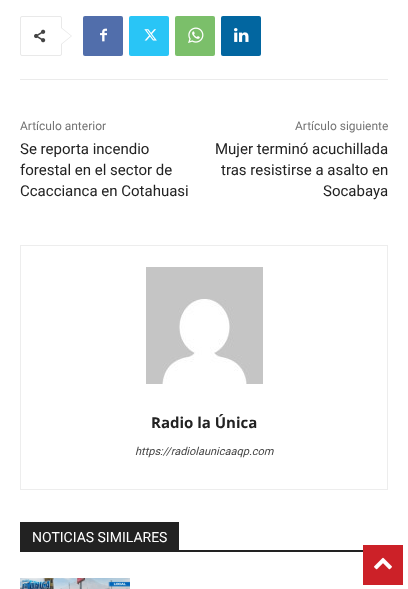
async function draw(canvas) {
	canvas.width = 408;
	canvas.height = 589;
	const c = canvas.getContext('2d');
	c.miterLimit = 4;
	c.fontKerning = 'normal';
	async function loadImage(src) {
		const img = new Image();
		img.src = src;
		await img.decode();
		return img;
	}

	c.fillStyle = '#fff';
	c.fillRect(0, 0, 408, 589);
	c.beginPath();
	c.roundRect(20.5, 16.5, 41, 39, 1.5);
	c.strokeStyle = '#e9e9e9';
	c.stroke();
	c.fillStyle = '#e9e9e9';
	c.beginPath();
	c.moveTo(61, 45);
	c.lineTo(61, 27);
	c.lineTo(72, 36);
	c.closePath();
	c.fill();
	c.drawImage(await loadImage('img1.png'), 34, 29, 12, 14);
	c.fillStyle = '#fff';
	c.beginPath();
	c.moveTo(61, 44);
	c.lineTo(61, 28);
	c.lineTo(71, 36);
	c.closePath();
	c.fill();
	c.fillStyle = '#516eab';
	c.beginPath();
	c.roundRect(83, 16, 40, 40, 2);
	c.fill();
	c.drawImage(await loadImage('img2.png'), 100, 28, 7, 14);
	c.fillStyle = '#29c5f6';
	c.beginPath();
	c.roundRect(129, 16, 40, 40, 2);
	c.fill();
	c.drawImage(await loadImage('img3.png'), 144, 29, 13, 12);
	c.fillStyle = '#7bbf6a';
	c.beginPath();
	c.roundRect(175, 16, 40, 40, 2);
	c.fill();
	c.drawImage(await loadImage('img4.png'), 188, 27, 16, 16);
	c.fillStyle = '#0266a0';
	c.beginPath();
	c.roundRect(221, 16, 40, 40, 2);
	c.fill();
	c.drawImage(await loadImage('img5.png'), 234, 28, 15, 14);
	c.fillStyle = '#ebebeb';
	c.fillRect(20, 79, 368, 1);
	c.font = '12px Roboto';
	c.fillStyle = '#747474';
	c.fillText('Artículo anterior', 20, 130);
	c.font = '15px Roboto';
	c.fillStyle = '#222';
	for (const [text, x, y] of [
		['Se reporta incendio', 20, 154],
		['forestal en el sector de', 20, 175],
		['Ccaccianca en Cotahuasi', 20, 196],
	]) {
		c.fillText(text, x, y);
	}
	c.font = '12px Roboto';
	c.fillStyle = '#747474';
	c.fillText('Artículo siguiente', 295, 130);
	c.font = '15px Roboto';
	c.fillStyle = '#222';
	for (const [text, x, y] of [
		['Mujer terminó acuchillada', 215, 154],
		['tras resistirse a asalto en', 221, 175],
		['Socabaya', 323, 196],
	]) {
		c.fillText(text, x, y);
	}
	c.strokeStyle = '#ededed';
	c.strokeRect(20.5, 245.5, 367, 244);
	c.drawImage(await loadImage('img6.png'), 146, 267, 117, 117);
	c.font = 'bold 15px Open Sans';
	c.fillText('Radio la Única', 151, 428);
	c.font = 'italic 11px Roboto';
	c.fillStyle = '#444';
	c.fillText('https://radiolaunicaaqp.com', 135, 455);
	c.fillStyle = '#222';
	c.fillRect(20, 550, 343, 2);
	c.fillRect(20, 522, 159, 28);
	c.font = '14px Roboto';
	c.fillStyle = '#fff';
	c.fillText('NOTICIAS SIMILARES', 32, 542);
	c.drawImage(await loadImage('img7.png'), 20, 578, 110, 11);
	c.fillStyle = '#cc2128';
	c.fillRect(363, 545, 40, 40);
	c.drawImage(await loadImage('img8.png'), 374, 557, 18, 13);
}

draw(document.querySelector('canvas'));
